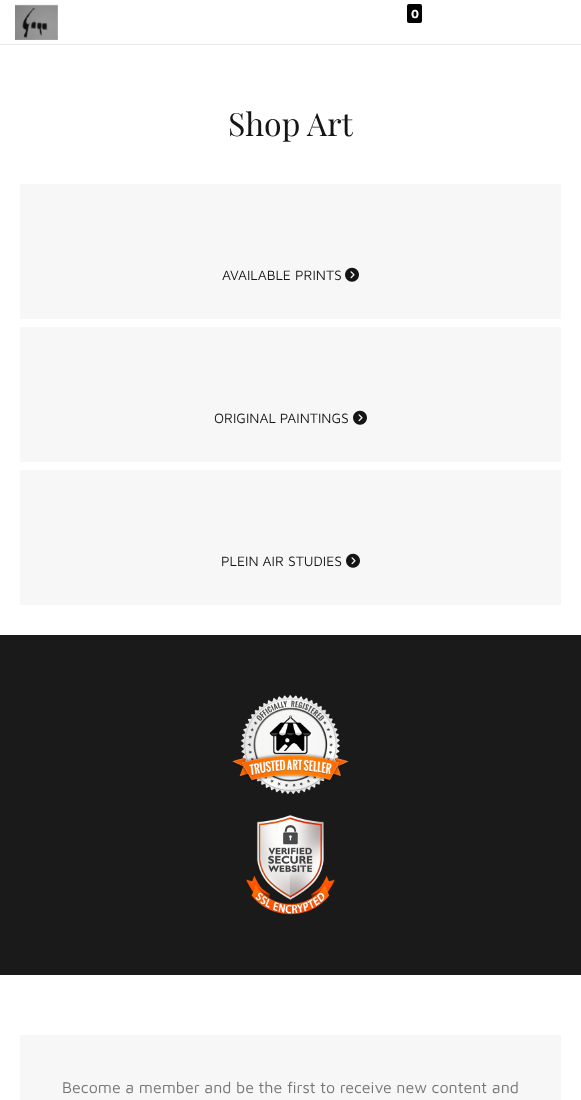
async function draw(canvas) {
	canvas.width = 581;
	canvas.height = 1100;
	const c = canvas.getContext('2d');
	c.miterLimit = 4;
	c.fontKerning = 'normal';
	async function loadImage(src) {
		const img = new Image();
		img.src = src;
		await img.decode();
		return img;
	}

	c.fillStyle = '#fff';
	c.fillRect(0, 0, 581, 1100);
	c.fillStyle = '#e8e9eb';
	c.fillRect(0, 44, 581, 1);
	c.drawImage(await loadImage('img1.png'), 15, 4, 43, 36);
	c.fillStyle = '#000';
	c.beginPath();
	c.roundRect(407, 4, 15, 19, 2);
	c.fill();
	c.font = 'bold 12px Maven Pro';
	c.fillStyle = '#fff';
	c.fillText('0', 411, 18);
	c.font = '32px Playfair Display';
	c.fillStyle = '#151515';
	c.fillText('Shop Art', 228, 136);
	c.fillStyle = '#f7f7f7';
	c.fillRect(20, 184, 541, 135);
	c.font = '14px Maven Pro';
	c.fillStyle = '#151515';
	c.fillText('AVAILABLE PRINTS', 222, 280);
	c.drawImage(await loadImage('img2.png'), 345, 267, 14, 15);
	c.fillStyle = '#f7f7f7';
	c.fillRect(20, 327, 541, 135);
	c.fillStyle = '#151515';
	c.fillText('ORIGINAL PAINTINGS', 214, 423);
	c.drawImage(await loadImage('img2.png'), 353, 410, 14, 15);
	c.fillStyle = '#f7f7f7';
	c.fillRect(20, 470, 541, 135);
	c.fillStyle = '#151515';
	c.fillText('PLEIN AIR STUDIES', 221, 566);
	c.drawImage(await loadImage('img2.png'), 346, 553, 14, 15);
	c.fillStyle = '#1a1a1a';
	c.fillRect(0, 635, 581, 340);
	c.drawImage(await loadImage('img3.png'), 232, 695, 117, 100);
	c.drawImage(await loadImage('img4.png'), 246, 815, 89, 100);
	c.fillStyle = '#f7f7f7';
	c.fillRect(20, 1035, 541, 65);
	c.font = '16px Maven Pro';
	c.fillStyle = '#757575';
	c.fillText('Become a member and be the first to receive new content and', 62, 1093);
}

draw(document.querySelector('canvas'));
